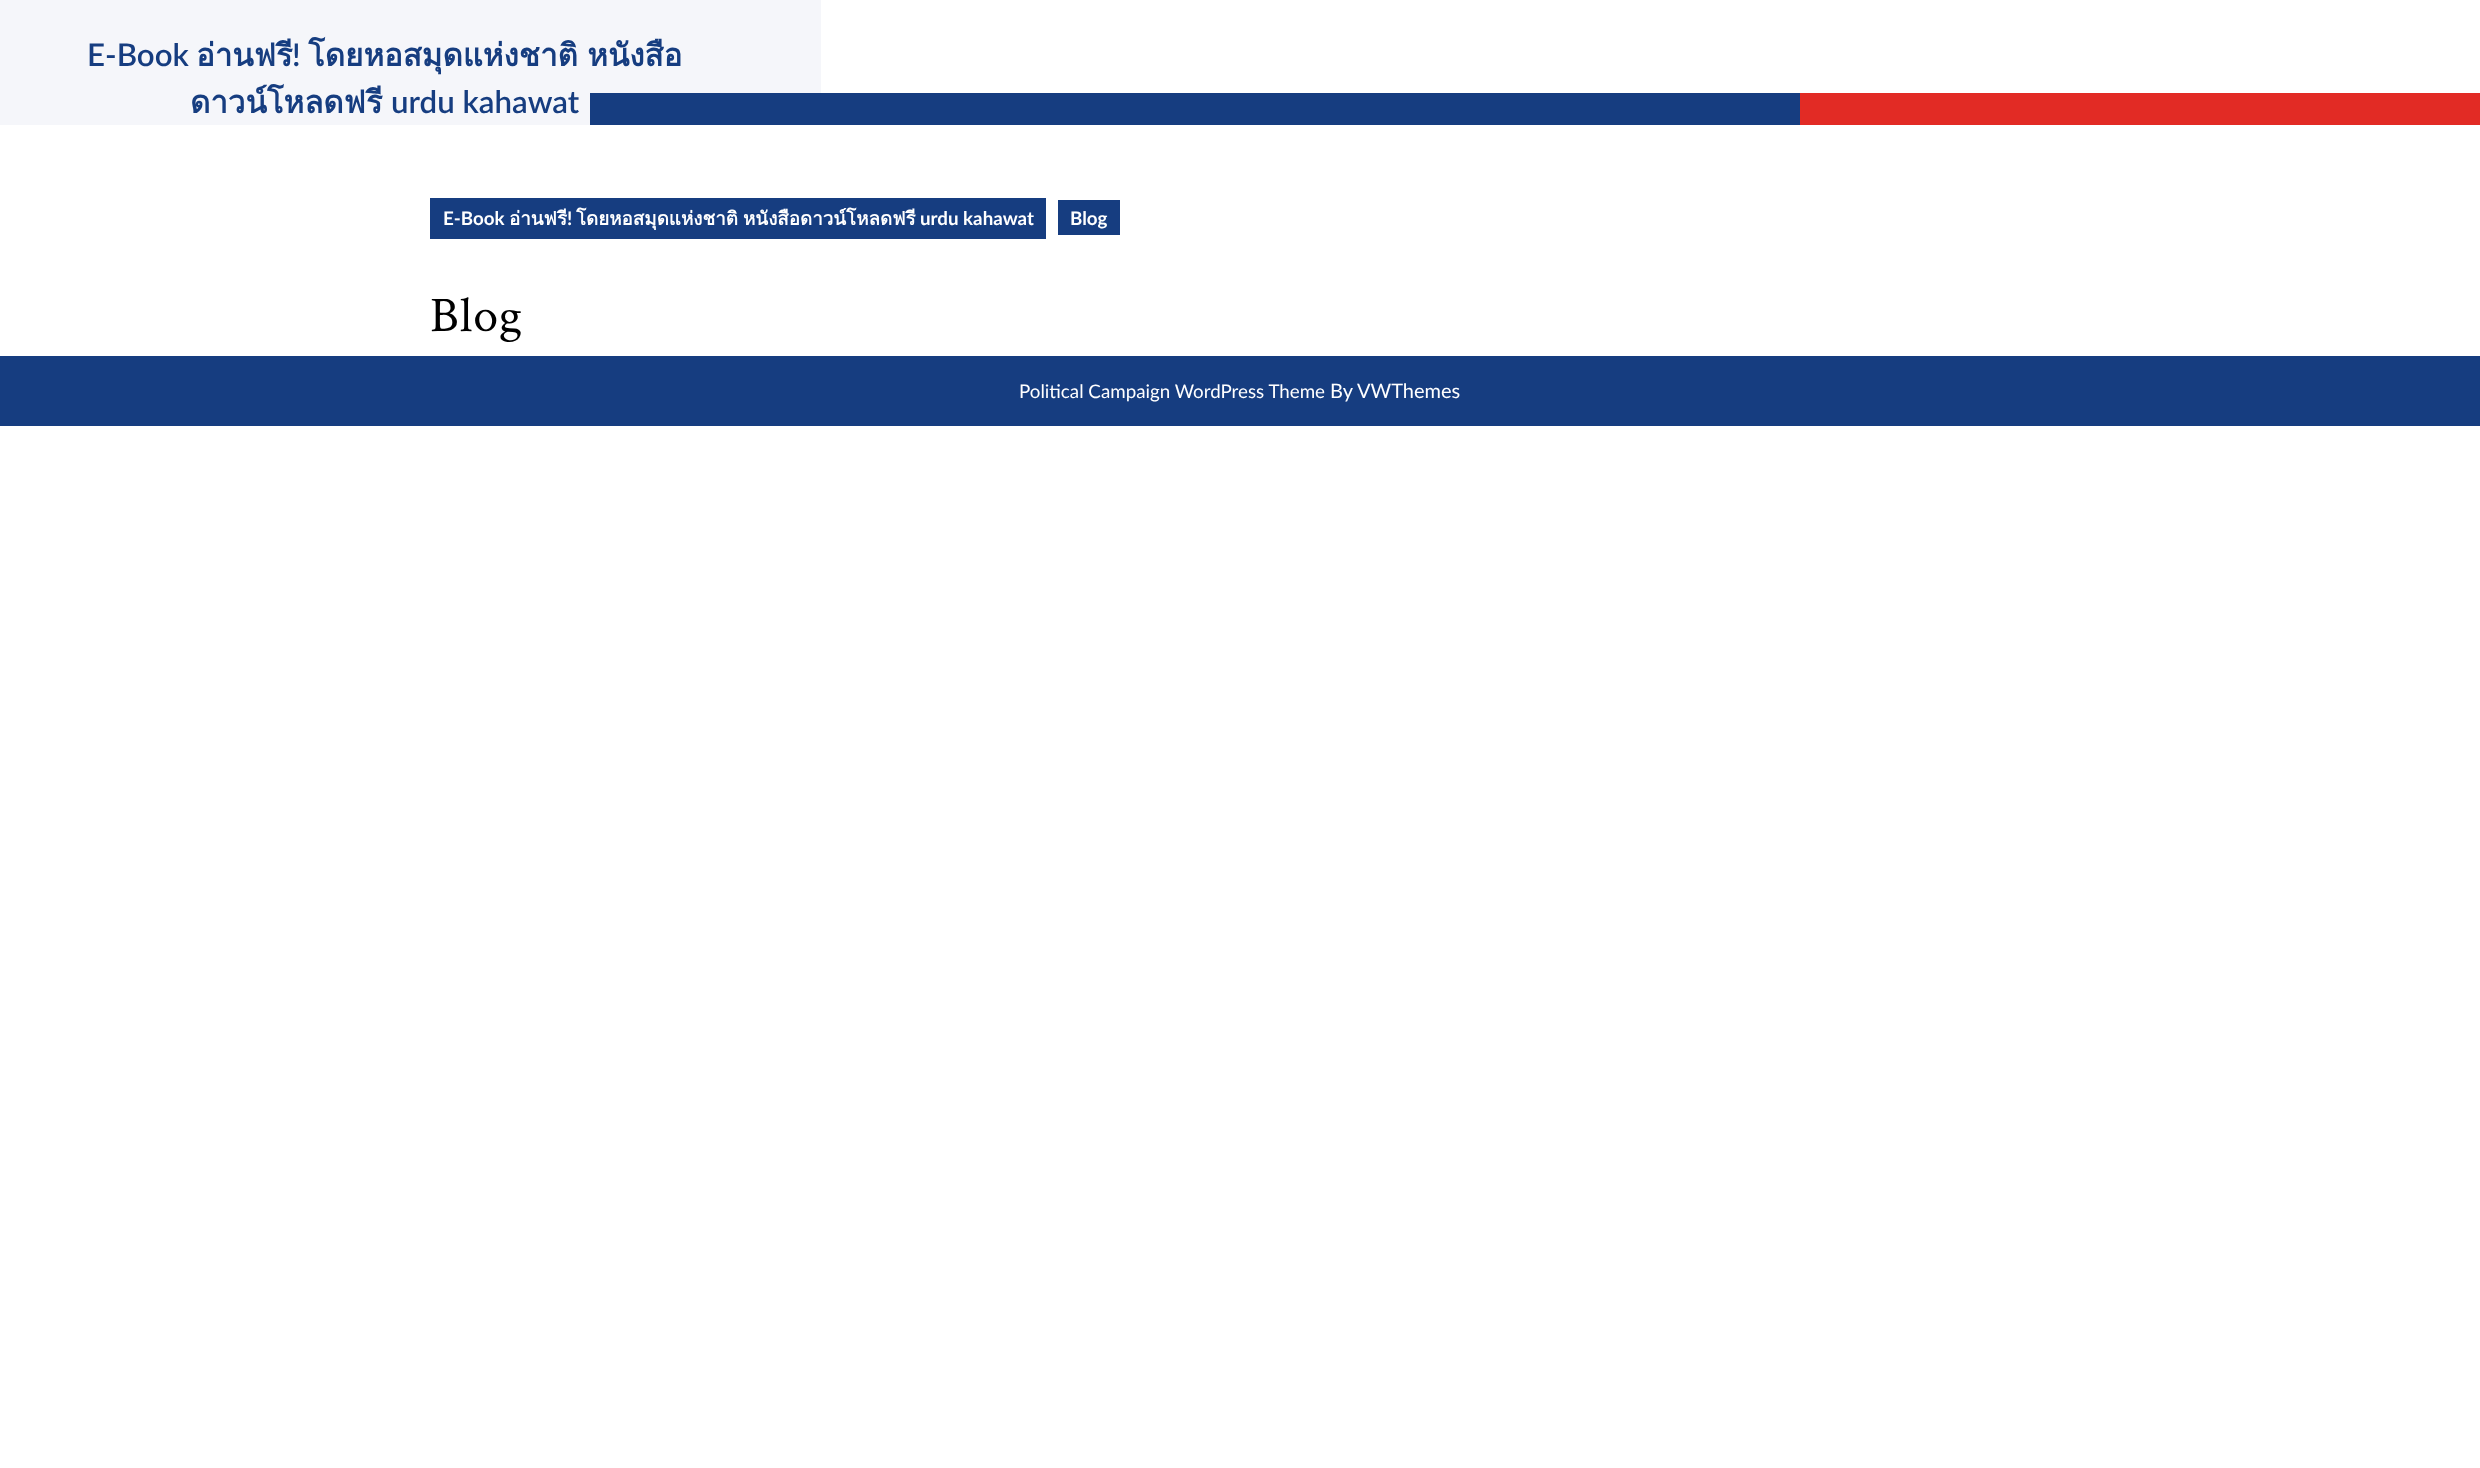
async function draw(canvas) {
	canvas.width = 2480;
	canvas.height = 1468;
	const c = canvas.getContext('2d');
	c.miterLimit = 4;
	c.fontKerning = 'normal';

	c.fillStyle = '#fff';
	c.fillRect(0, 0, 2480, 1468);
	c.fillStyle = '#f5f6fa';
	c.fillRect(0, 0, 821, 125);
	c.font = '600 31.25px Lato';
	c.fillStyle = '#163d80';
	c.fillText('E-Book', 87, 66);
	c.font = 'bold 31.25px Loma';
	c.fillText('อ่านฟรี', 196, 66);
	c.font = '600 31.25px Lato';
	c.fillText('!', 292, 66);
	c.wordSpacing = '-1px';
	c.font = 'bold 31.25px Loma';
	c.fillText('โดยหอสมุดแห่งชาติ หนังสือ', 308, 66);
	c.wordSpacing = '0px';
	c.fillText('ดาวน์โหลดฟรี', 190, 113);
	c.font = '600 31.25px Lato';
	c.fillText('urdu kahawat', 391, 113);
	for (const [x, y, w, h, color] of [
		[590, 93, 1210, 32, '#163d80'],
		[1800, 93, 680, 32, '#e22b25'],
		[430, 198, 616, 41, '#163d80'],
	]) {
		c.fillStyle = color;
		c.fillRect(x, y, w, h);
	}
	c.font = 'bold 18.75px Lato';
	c.fillStyle = '#fff';
	c.fillText('E-Book', 443, 225);
	c.font = 'bold 18.75px Loma';
	c.fillText('อ่านฟรี', 509, 225);
	c.font = 'bold 18.75px Lato';
	c.fillText('!', 567, 225);
	c.font = 'bold 18.75px Loma';
	c.fillText('โดยหอสมุดแห่งชาติ', 576, 225);
	c.fillText('หนังสือดาวน์โหลดฟรี', 743, 225);
	c.font = 'bold 18.75px Lato';
	c.fillText('urdu kahawat', 920, 225);
	c.fillStyle = '#163d80';
	c.fillRect(1058, 200, 62, 35);
	c.fillStyle = '#fff';
	c.fillText('Blog', 1070, 225);
	c.letterSpacing = '1px';
	c.font = '50px Crimson Text';
	c.fillStyle = '#000';
	c.fillText('Blog', 430, 331);
	c.fillStyle = '#163d80';
	c.fillRect(0, 356, 2480, 70);
	c.letterSpacing = '0px';
	c.font = '18.75px Lato';
	c.fillStyle = '#fff';
	c.fillText('Political Campaign WordPress Theme', 1019, 398);
	c.font = '20px Lato';
	c.fillText('By VWThemes', 1330, 398);
}

draw(document.querySelector('canvas'));
